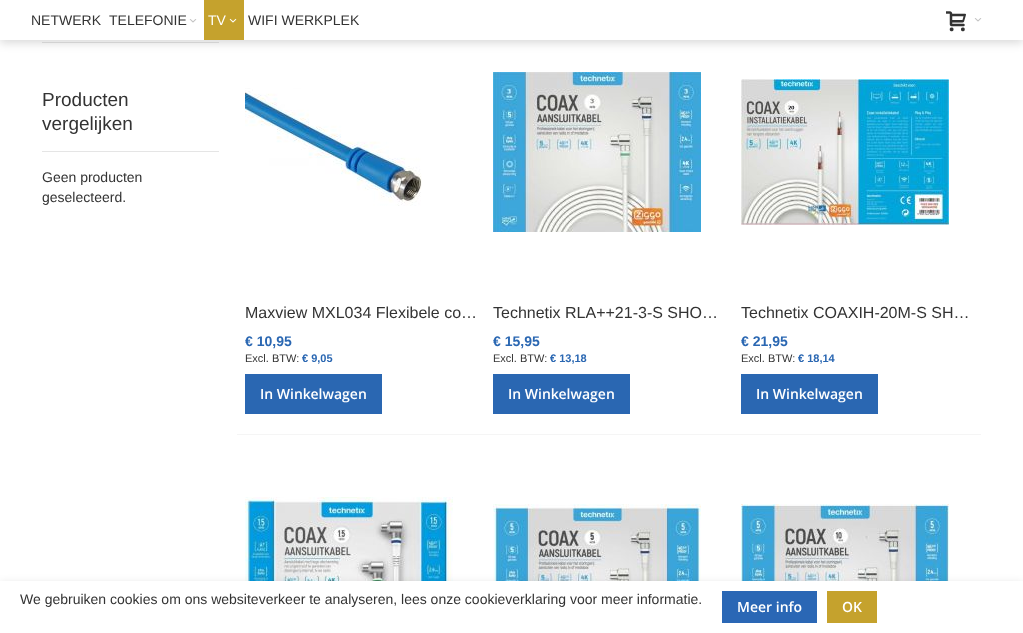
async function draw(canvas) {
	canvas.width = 1023;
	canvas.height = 633;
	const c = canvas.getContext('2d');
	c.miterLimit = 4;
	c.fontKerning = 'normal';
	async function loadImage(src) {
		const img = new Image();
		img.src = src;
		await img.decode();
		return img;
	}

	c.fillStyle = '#fff';
	c.fillRect(0, 0, 1023, 633);
	c.fillStyle = '#e5e5e5';
	c.fillRect(42, 42, 177, 1);
	c.fillStyle = '#00000026';
	c.filter = 'blur(5px)';
	c.beginPath();
	c.rect(0, 3, 1023, 40);
	c.fill();
	c.filter = 'none';
	c.fillStyle = '#fff';
	c.fillRect(0, 0, 1023, 40);
	c.font = '14px Liberation Sans';
	c.fillStyle = '#333';
	c.fillText('NETWERK', 31, 25);
	c.fillText('TELEFONIE', 109, 25);
	c.drawImage(await loadImage('img1.png'), 189, 19, 8, 4);
	c.fillStyle = '#c5a22d';
	c.fillRect(204, 0, 40, 40);
	c.fillStyle = '#fff';
	c.fillText('TV', 208, 25);
	c.drawImage(await loadImage('img2.png'), 229, 18, 8, 5);
	c.fillStyle = '#333';
	c.fillText('WIFI WERKPLEK', 248, 25);
	c.drawImage(await loadImage('img3.png'), 946, 11, 20, 21);
	c.drawImage(await loadImage('img1.png'), 974, 18, 8, 4);
	c.fillStyle = '#e5e5e5';
	c.fillRect(42, 151, 177, 1);
	c.font = '19px Liberation Sans';
	c.fillStyle = '#333';
	c.fillText('Producten', 42, 106);
	c.fillText('vergelijken', 42, 130);
	c.font = '14px Liberation Sans';
	c.fillText('Geen producten', 42, 182);
	c.fillText('geselecteerd.', 42, 202);
	c.drawImage(await loadImage('img4.png'), 245, 88, 177, 118);
	c.font = '16px Liberation Sans';
	c.fillText('Maxview MXL034 Flexibele co…', 245, 318);
	c.font = 'bold 14px Liberation Sans';
	c.fillStyle = '#2a67b2';
	c.fillText('€ 10,95', 245, 346);
	c.font = '11px Liberation Sans';
	c.fillStyle = '#333';
	c.fillText('Excl. BTW:', 245, 362);
	c.font = 'bold 11px Liberation Sans';
	c.fillStyle = '#2a67b2';
	c.fillText('€ 9,05', 302, 362);
	c.fillRect(245, 374, 137, 40);
	c.font = '600 14px Open Sans';
	c.fillStyle = '#fff';
	c.fillText('In Winkelwagen', 260, 399);
	c.drawImage(await loadImage('img5.png'), 493, 72, 208, 160);
	c.font = '16px Liberation Sans';
	c.fillStyle = '#333';
	c.fillText('Technetix RLA++21-3-S SHO…', 493, 318);
	c.font = 'bold 14px Liberation Sans';
	c.fillStyle = '#2a67b2';
	c.fillText('€ 15,95', 493, 346);
	c.font = '11px Liberation Sans';
	c.fillStyle = '#333';
	c.fillText('Excl. BTW:', 493, 362);
	c.font = 'bold 11px Liberation Sans';
	c.fillStyle = '#2a67b2';
	c.fillText('€ 13,18', 550, 362);
	c.fillRect(493, 374, 137, 40);
	c.font = '600 14px Open Sans';
	c.fillStyle = '#fff';
	c.fillText('In Winkelwagen', 508, 399);
	c.drawImage(await loadImage('img6.png'), 741, 79, 208, 146);
	c.font = '16px Liberation Sans';
	c.fillStyle = '#333';
	c.fillText('Technetix COAXIH-20M-S SH…', 741, 318);
	c.font = 'bold 14px Liberation Sans';
	c.fillStyle = '#2a67b2';
	c.fillText('€ 21,95', 741, 346);
	c.font = '11px Liberation Sans';
	c.fillStyle = '#333';
	c.fillText('Excl. BTW:', 741, 362);
	c.font = 'bold 11px Liberation Sans';
	c.fillStyle = '#2a67b2';
	c.fillText('€ 18,14', 798, 362);
	c.fillRect(741, 374, 137, 40);
	c.font = '600 14px Open Sans';
	c.fillStyle = '#fff';
	c.fillText('In Winkelwagen', 756, 399);
	c.fillStyle = '#f5f5f5';
	c.fillRect(237, 434, 744, 1);
	c.drawImage(await loadImage('img7.png'), 245, 497, 208, 84);
	c.drawImage(await loadImage('img8.png'), 493, 504, 208, 77);
	c.drawImage(await loadImage('img9.png'), 741, 504, 208, 77);
	c.fillStyle = '#00000026';
	c.filter = 'blur(5px)';
	c.beginPath();
	c.rect(0, 584, 1023, 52);
	c.fill();
	c.filter = 'none';
	c.fillStyle = '#fff';
	c.fillRect(0, 581, 1023, 52);
	c.font = '14px Liberation Sans';
	c.fillStyle = '#333';
	c.fillText('We gebruiken cookies om ons websiteverkeer te analyseren, lees onze cookieverklaring voor meer informatie.', 20, 604);
	c.fillStyle = '#2a67b5';
	c.fillRect(722, 591, 95, 32);
	c.font = '600 14px Open Sans';
	c.fillStyle = '#fff';
	c.fillText('Meer info', 737, 612);
	c.fillStyle = '#c5a22d';
	c.fillRect(827, 591, 50, 32);
	c.fillStyle = '#fff';
	c.fillText('OK', 842, 612);
}

draw(document.querySelector('canvas'));
